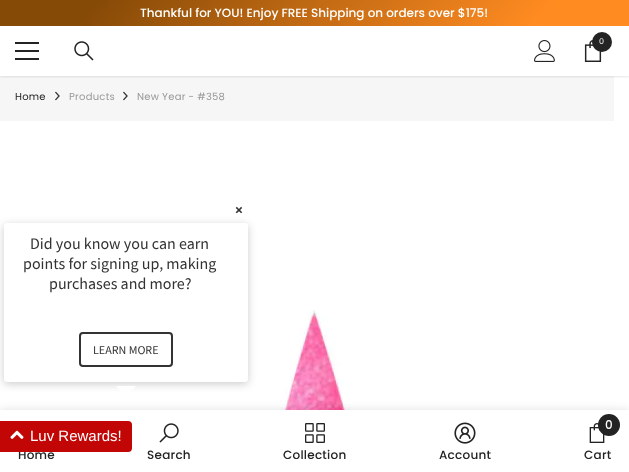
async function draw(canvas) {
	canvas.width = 629;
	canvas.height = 472;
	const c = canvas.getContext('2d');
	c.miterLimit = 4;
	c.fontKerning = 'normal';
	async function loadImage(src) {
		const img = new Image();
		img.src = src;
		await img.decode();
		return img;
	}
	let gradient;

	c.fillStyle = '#fff';
	c.fillRect(0, 0, 629, 472);
	gradient = c.createLinearGradient(505, 173, 124, -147);
	gradient.addColorStop(0.15, '#ff8b21');
	gradient.addColorStop(0.85, '#864a07');
	c.fillStyle = gradient;
	c.fillRect(0, 0, 629, 26);
	c.font = '500 12px Poppins';
	c.fillStyle = '#fff';
	c.fillText('Thankful for YOU! Enjoy FREE Shipping on orders over $175!', 140, 17);
	c.fillStyle = '#f6f6f6';
	c.fillRect(0, 76, 614, 45);
	c.save();
	c.beginPath();
	c.rect(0, 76, 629, 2);
	c.clip();
	c.fillStyle = '#0000001a';
	c.filter = 'blur(1.5px)';
	c.beginPath();
	c.rect(0, 27, 629, 50);
	c.fill();
	c.filter = 'none';
	c.restore();
	for (const [x, y, w, h, color] of [
		[15, 50, 24, 2, '#232323'],
		[15, 42, 24, 2, '#232323'],
		[15, 58, 24, 2, '#232323'],
	]) {
		c.fillStyle = color;
		c.fillRect(x, y, w, h);
	}
	c.drawImage(await loadImage('img1.png'), 74, 41, 20, 20);
	c.drawImage(await loadImage('img2.png'), 534, 40, 21, 22);
	c.drawImage(await loadImage('img3.png'), 584, 40, 18, 22);
	c.beginPath();
	c.arc(602, 42, 10, 0, 2 * Math.PI);
	c.fill();
	c.font = '8px Poppins';
	c.fillStyle = '#fff';
	c.fillText('0', 599, 44);
	c.letterSpacing = '0.25px';
	c.font = '10px Poppins';
	c.fillStyle = '#232323';
	c.fillText('Home', 15, 100);
	c.drawImage(await loadImage('img4.png'), 55, 91, 5, 10);
	c.fillStyle = '#999';
	c.fillText('Products', 69, 100);
	c.drawImage(await loadImage('img4.png'), 123, 91, 5, 10);
	c.fillText('New Year - #358', 137, 100);
	c.drawImage(await loadImage('img5.png'), 268, 310, 95, 100);
	c.fillStyle = '#0000001f';
	c.filter = 'blur(4.5px)';
	c.beginPath();
	c.rect(0, 410, 629, 62);
	c.fill();
	c.filter = 'none';
	c.fillStyle = '#fff';
	c.fillRect(0, 410, 629, 62);
	c.font = '500 12px Poppins';
	c.fillStyle = '#232323';
	c.fillText('Home', 18, 459);
	c.drawImage(await loadImage('img6.png'), 159, 423, 20, 20);
	c.fillText('Search', 147, 459);
	c.drawImage(await loadImage('img7.png'), 305, 423, 20, 20);
	c.fillText('Collection', 283, 459);
	c.drawImage(await loadImage('img8.png'), 454, 422, 22, 22);
	c.fillText('Account', 439, 459);
	c.drawImage(await loadImage('img9.png'), 589, 423, 16, 20);
	c.beginPath();
	c.arc(609, 425, 11, 0, 2 * Math.PI);
	c.fill();
	c.letterSpacing = '0px';
	c.fillStyle = '#fff';
	c.fillText('0', 605, 429);
	c.letterSpacing = '0.25px';
	c.fillStyle = '#232323';
	c.fillText('Cart', 584, 459);
	c.letterSpacing = '0px';
	c.font = 'bold 15px Source Sans Pro';
	c.fillStyle = '#333';
	c.fillText('×', 235, 215);
	c.fillStyle = '#00000033';
	c.filter = 'blur(4px)';
	c.beginPath();
	c.roundRect(4, 225, 244, 159, 3);
	c.fill();
	c.filter = 'none';
	c.fillStyle = '#fff';
	c.beginPath();
	c.roundRect(4, 223, 244, 159, 3);
	c.fill();
	c.font = '16px Source Sans Pro';
	c.fillStyle = '#333';
	for (const [text, x, y] of [
		['Did you know you can earn', 30, 249],
		['points for signing up, making', 23, 269],
		['purchases and more?', 49, 289],
	]) {
		c.fillText(text, x, y);
	}
	c.beginPath();
	c.roundRect(80, 333, 92, 33, 3);
	c.strokeStyle = '#333';
	c.lineWidth = 2;
	c.stroke();
	c.font = '12px Source Sans Pro';
	c.fillText('LEARN MORE', 93, 354);
	c.fillStyle = '#fff';
	c.beginPath();
	c.moveTo(116, 386);
	c.lineTo(136, 386);
	c.lineTo(126, 396);
	c.closePath();
	c.fill();
	c.fillStyle = '#c20606';
	c.beginPath();
	c.roundRect(0, 421, 132, 31, [0, 4, 4, 0]);
	c.fill();
	c.drawImage(await loadImage('img10.png'), 10, 430, 14, 9);
	c.font = '15px Liberation Sans';
	c.fillStyle = '#fff';
	c.fillText('Luv Rewards!', 30, 441);
}

draw(document.querySelector('canvas'));
